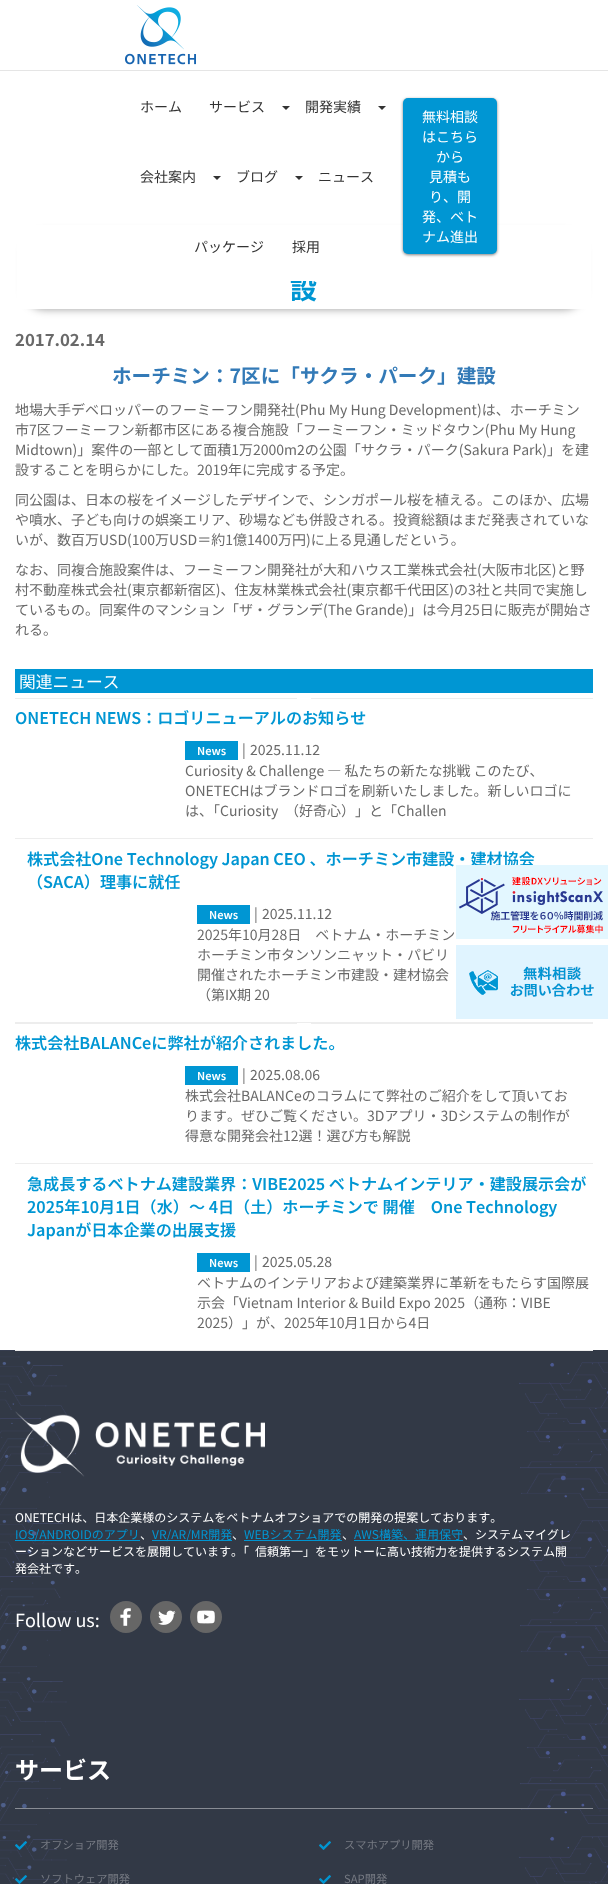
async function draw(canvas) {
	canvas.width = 608;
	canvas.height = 1884;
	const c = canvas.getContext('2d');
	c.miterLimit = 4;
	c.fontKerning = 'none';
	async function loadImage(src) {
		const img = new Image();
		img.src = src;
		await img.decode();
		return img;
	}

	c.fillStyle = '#fff';
	c.fillRect(0, 0, 608, 1884);
	c.drawImage(await loadImage('img1.png'), 125, 5, 71, 60);
	c.fillStyle = '#e5e5e5';
	c.fillRect(0, 70, 608, 1);
	c.fillStyle = '#00000066';
	c.filter = 'blur(4px)';
	c.beginPath();
	c.roundRect(25, 233, 558, 76, 19);
	c.fill();
	c.filter = 'none';
	c.fillStyle = '#fff';
	c.fillRect(17, 281, 574, 28);
	c.font = 'bold 27px Noto Sans JP';
	c.fillStyle = '#0096d3';
	c.fillText('設', 290, 299);
	c.fillStyle = '#fff';
	c.fillRect(17, 225, 574, 56);
	c.font = '14px Noto Sans JP';
	c.fillStyle = '#333';
	c.fillText('ホーム', 140, 112);
	c.fillText('サービス', 209, 112);
	c.beginPath();
	c.moveTo(282, 106);
	c.lineTo(290, 106);
	c.lineTo(286, 110);
	c.closePath();
	c.fill();
	c.fillText('開発実績', 305, 112);
	c.beginPath();
	c.moveTo(378, 106);
	c.lineTo(386, 106);
	c.lineTo(382, 110);
	c.closePath();
	c.fill();
	c.fillText('会社案内', 140, 182);
	c.beginPath();
	c.moveTo(213, 176);
	c.lineTo(221, 176);
	c.lineTo(217, 180);
	c.closePath();
	c.fill();
	c.fillText('ブログ', 236, 182);
	c.beginPath();
	c.moveTo(295, 176);
	c.lineTo(303, 176);
	c.lineTo(299, 180);
	c.closePath();
	c.fill();
	for (const [text, x, y] of [
		['ニュース', 318, 182],
		['パッケージ', 194, 252],
		['採用', 292, 252],
	]) {
		c.fillText(text, x, y);
	}
	c.fillStyle = '#00000080';
	c.filter = 'blur(1.5px)';
	c.beginPath();
	c.roundRect(403, 99, 94, 156, 5);
	c.fill();
	c.filter = 'none';
	c.fillStyle = '#0096d3';
	c.beginPath();
	c.roundRect(403, 98, 94, 156, 5);
	c.fill();
	c.fillStyle = '#fff';
	for (const [text, x, y] of [
		['無料相談', 422, 122],
		['はこちら', 422, 142],
		['から', 436, 162],
		['見積も', 429, 182],
		['り、開', 429, 202],
		['発、ベト', 422, 222],
		['ナム進出', 422, 242],
	]) {
		c.fillText(text, x, y);
	}
	c.font = 'bold 16.75px Noto Sans JP';
	c.fillStyle = '#696969';
	c.fillText('2017.02.14', 15, 346);
	c.font = 'bold 19.6px Noto Sans JP';
	c.fillStyle = '#337ab7';
	c.fillText('ホーチミン：7区に「サクラ・パーク」建設', 112, 383);
	c.font = '14px Noto Sans JP';
	c.fillStyle = '#696969';
	for (const [text, x, y] of [
		['地場大手デベロッパーのフーミーフン開発社(Phu My Hung Development)は、ホーチミン', 15, 415],
		['市7区フーミーフン新都市区にある複合施設「フーミーフン・ミッドタウン(Phu My Hung', 15, 435],
		['Midtown)」案件の一部として面積1万2000m2の公園「サクラ・パーク(Sakura Park)」を建', 15, 455],
		['設することを明らかにした。2019年に完成する予定。', 15, 475],
		['同公園は、日本の桜をイメージしたデザインで、シンガポール桜を植える。このほか、広場', 15, 505],
		['や噴水、子ども向けの娯楽エリア、砂場なども併設される。投資総額はまだ発表されていな', 15, 525],
		['いが、数百万USD(100万USD＝約1億1400万円)に上る見通しだという。', 15, 545],
		['なお、同複合施設案件は、フーミーフン開発社が大和ハウス工業株式会社(大阪市北区)と野', 15, 575],
		['村不動産株式会社(東京都新宿区)、住友林業株式会社(東京都千代田区)の3社と共同で実施し', 15, 595],
		['ているもの。同案件のマンション「ザ・グランデ(The Grande)」は今月25日に販売が開始さ', 15, 615],
		['れる。', 15, 635],
	]) {
		c.fillText(text, x, y);
	}
	c.fillStyle = '#0096d3';
	c.fillRect(15, 669, 578, 24);
	c.font = '16.75px Noto Sans JP';
	c.fillStyle = '#fff';
	c.fillText('関連ニュース', 19, 688);
	for (const [x, y, w, h, color] of [
		[15, 698, 282, 1, '#ededed'],
		[311, 698, 282, 1, '#ededed'],
		[15, 838, 578, 1, '#ededed'],
	]) {
		c.fillStyle = color;
		c.fillRect(x, y, w, h);
	}
	c.font = '600 16.1px Noto Sans JP';
	c.fillStyle = '#0096d3';
	c.fillText('ONETECH NEWS：ロゴリニューアルのお知らせ', 15, 724);
	c.fillRect(185, 741, 53, 19);
	c.font = '600 11px Noto Sans JP';
	c.fillStyle = '#fff';
	c.fillText('News', 197, 755);
	c.font = '14px Noto Sans JP';
	c.fillStyle = '#696969';
	for (const [text, x, y] of [
		['|', 242, 755],
		['2025.11.12', 250, 755],
		['Curiosity & Challenge ― 私たちの新たな挑戦 このたび、', 185, 776],
		['ONETECHはブランドロゴを刷新いたしました。新しいロゴに', 185, 796],
		['は、「Curiosity', 185, 816],
		['（好奇心）', 285, 816],
		['」と「Challen', 355, 816],
	]) {
		c.fillText(text, x, y);
	}
	c.fillStyle = '#ededed';
	c.fillRect(15, 1022, 578, 1);
	c.font = '600 16.1px Noto Sans JP';
	c.fillStyle = '#0096d3';
	c.fillText('株式会社One Technology Japan CEO 、ホーチミン市建設・建材協会', 27, 865);
	c.fillText('（SACA）理事に就任', 27, 888);
	c.fillRect(197, 905, 53, 19);
	c.font = '600 11px Noto Sans JP';
	c.fillStyle = '#fff';
	c.fillText('News', 209, 919);
	c.font = '14px Noto Sans JP';
	c.fillStyle = '#696969';
	for (const [text, x, y] of [
		['|', 254, 919],
		['2025.11.12', 262, 919],
		['2025年10月28日　ベトナム・ホーチミン', 197, 940],
		['ホーチミン市タンソンニャット・パビリ', 197, 960],
		['開催されたホーチミン市建設・建材協会', 197, 980],
		['（第IX期 20', 197, 1000],
	]) {
		c.fillText(text, x, y);
	}
	for (const [x, y, w, h, color] of [
		[15, 1023, 282, 1, '#ededed'],
		[311, 1023, 282, 1, '#ededed'],
		[15, 1163, 578, 1, '#ededed'],
	]) {
		c.fillStyle = color;
		c.fillRect(x, y, w, h);
	}
	c.font = '600 16.1px Noto Sans JP';
	c.fillStyle = '#0096d3';
	c.fillText('株式会社BALANCeに弊社が紹介されました。', 15, 1049);
	c.fillRect(185, 1066, 53, 19);
	c.font = '600 11px Noto Sans JP';
	c.fillStyle = '#fff';
	c.fillText('News', 197, 1080);
	c.font = '14px Noto Sans JP';
	c.fillStyle = '#696969';
	for (const [text, x, y] of [
		['|', 242, 1080],
		['2025.08.06', 250, 1080],
		['株式会社BALANCeのコラムにて弊社のご紹介をして頂いてお', 185, 1101],
		['ります。ぜひご覧ください。3Dアプリ・3Dシステムの制作が', 185, 1121],
		['得意な開発会社12選！選び方も解説', 185, 1141],
	]) {
		c.fillText(text, x, y);
	}
	c.drawImage(await loadImage('img4.png'), 0, 1350, 608, 534);
	c.fillStyle = '#ededed';
	c.fillRect(15, 1350, 578, 1);
	c.font = '600 16.1px Noto Sans JP';
	c.fillStyle = '#0096d3';
	for (const [text, x, y] of [
		['急成長するベトナム建設業界：VIBE2025 ベトナムインテリア・建設展示会が', 27, 1190],
		['2025年10月1日（水）～ 4日（土）ホーチミンで 開催　One Technology', 27, 1213],
		['Japanが日本企業の出展支援', 27, 1236],
	]) {
		c.fillText(text, x, y);
	}
	c.fillRect(197, 1253, 53, 19);
	c.font = '600 11px Noto Sans JP';
	c.fillStyle = '#fff';
	c.fillText('News', 209, 1267);
	c.font = '14px Noto Sans JP';
	c.fillStyle = '#696969';
	for (const [text, x, y] of [
		['|', 254, 1267],
		['2025.05.28', 262, 1267],
		['ベトナムのインテリアおよび建築業界に革新をもたらす国際展', 197, 1288],
		['示会「Vietnam Interior & Build Expo 2025（通称：VIBE', 197, 1308],
		['2025）', 197, 1328],
		['」が、2025年10月1日から4日', 242, 1328],
	]) {
		c.fillText(text, x, y);
	}
	c.drawImage(await loadImage('img2.png'), 456, 865, 152, 74);
	c.drawImage(await loadImage('img3.png'), 456, 945, 152, 74);
	c.drawImage(await loadImage('img5.png'), 15, 1411, 250, 66);
	c.font = '12px Noto Sans JP';
	c.fillStyle = '#fff';
	c.fillText('ONETECHは、日本企業様のシステムをベトナムオフショアでの開発の提案しております。', 15, 1522);
	c.fillStyle = '#0095d2';
	c.fillRect(15, 1540, 125, 1);
	c.fillStyle = '#0096d3';
	c.fillText('IOS/ANDROIDのアプリ', 15, 1539);
	c.fillStyle = '#fff';
	c.fillText('、', 140, 1539);
	c.fillStyle = '#0095d2';
	c.fillRect(152, 1540, 80, 1);
	c.fillStyle = '#0096d3';
	c.fillText('VR/AR/MR開発', 152, 1539);
	c.fillStyle = '#fff';
	c.fillText('、', 232, 1539);
	c.fillStyle = '#0096d3';
	c.fillText('WEBシステム開発', 244, 1539);
	c.fillStyle = '#0095d2';
	c.fillRect(244, 1540, 98, 1);
	c.fillStyle = '#fff';
	c.fillText('、', 342, 1539);
	c.fillStyle = '#0096d3';
	c.fillText('AWS構築、運用保守', 354, 1539);
	c.fillStyle = '#0095d2';
	c.fillRect(354, 1540, 109, 1);
	c.fillStyle = '#fff';
	for (const [text, x, y] of [
		['、システムマイグレ', 463, 1539],
		['ーションなどサービスを展開しています。「', 15, 1556],
		['信頼第一」をモットーに高い技術力を提供するシステム開', 255, 1556],
		['発会社です。', 15, 1573],
	]) {
		c.fillText(text, x, y);
	}
	c.font = '18px Noto Sans JP';
	c.fillText('Follow us:', 15, 1627);
	c.fillStyle = '#666';
	c.beginPath();
	c.arc(126, 1617, 16, 0, 2 * Math.PI);
	c.fill();
	c.drawImage(await loadImage('img6.png'), 120, 1608, 11, 18);
	c.beginPath();
	c.arc(166, 1617, 16, 0, 2 * Math.PI);
	c.fill();
	c.drawImage(await loadImage('img7.png'), 158, 1610, 18, 15);
	c.beginPath();
	c.arc(206, 1617, 16, 0, 2 * Math.PI);
	c.fill();
	c.drawImage(await loadImage('img8.png'), 197, 1610, 18, 14);
	c.fillStyle = '#888c94';
	c.fillRect(15, 1808, 578, 1);
	c.font = 'bold 24px Noto Sans JP';
	c.fillStyle = '#fff';
	c.fillText('サービス', 15, 1779);
	c.drawImage(await loadImage('img9.png'), 15, 1841, 12, 9);
	c.font = '11.25px Noto Sans JP';
	c.fillStyle = '#757982';
	c.fillText('オフショア開発', 40, 1849);
	c.drawImage(await loadImage('img10.png'), 15, 1875, 12, 9);
	c.fillText('ソフトウェア開発', 40, 1883);
	c.drawImage(await loadImage('img11.png'), 319, 1841, 12, 9);
	c.fillText('スマホアプリ開発', 344, 1849);
	c.drawImage(await loadImage('img11.png'), 319, 1875, 12, 9);
	c.fillText('SAP開発', 344, 1883);
}

draw(document.querySelector('canvas'));
